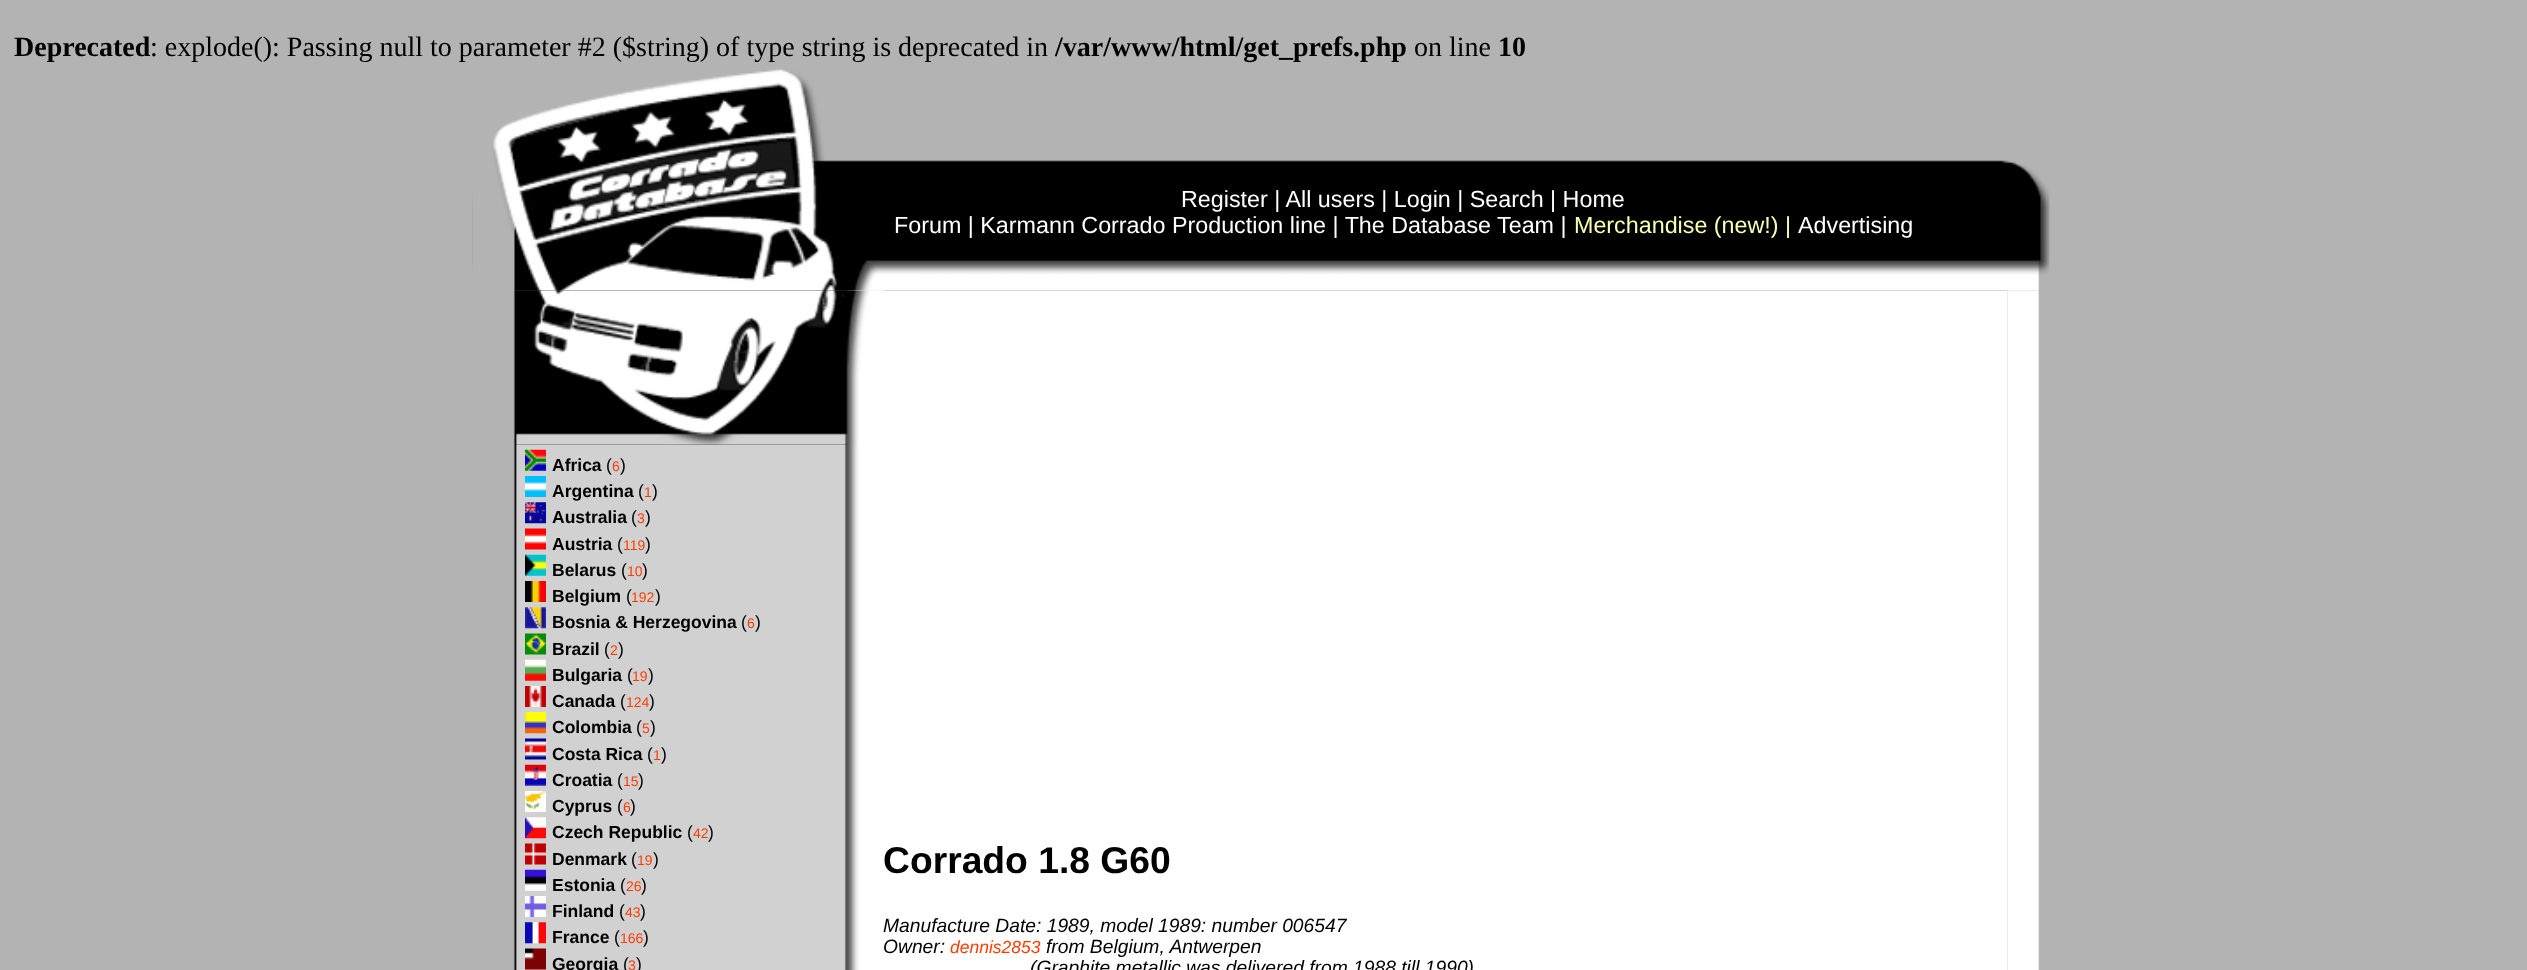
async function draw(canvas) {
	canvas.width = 2527;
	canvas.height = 970;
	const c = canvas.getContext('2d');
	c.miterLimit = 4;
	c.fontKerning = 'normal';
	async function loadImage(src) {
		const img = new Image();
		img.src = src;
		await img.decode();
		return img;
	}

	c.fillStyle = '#b3b3b3';
	c.fillRect(0, 0, 2527, 970);
	c.font = 'bold 28px Liberation Serif';
	c.fillStyle = '#000';
	c.fillText('Deprecated', 14, 56);
	c.font = '28px Liberation Serif';
	c.fillText(': explode(): Passing null to parameter #2 ($string) of type string is deprecated in', 150, 56);
	c.font = 'bold 28px Liberation Serif';
	c.fillText('/var/www/html/get_prefs.php', 1055, 56);
	c.font = '28px Liberation Serif';
	c.fillText('on line', 1414, 56);
	c.font = 'bold 28px Liberation Serif';
	c.fillText('10', 1498, 56);
	c.drawImage(await loadImage('img1.png'), 472, 69, 1578, 222);
	c.font = '23.3px Liberation Sans';
	c.fillStyle = '#fff';
	c.fillText('Register | All users | Login | Search | Home', 1181, 207);
	c.fillText('Forum | Karmann Corrado Production line | The Database Team |', 894, 233);
	c.fillStyle = '#faffaf';
	c.fillText('Merchandise (new!) |', 1574, 233);
	c.fillStyle = '#fff';
	c.fillText('Advertising', 1798, 233);
	c.drawImage(await loadImage('img2.png'), 513, 290, 371, 680);
	c.drawImage(await loadImage('img4.png'), 515, 444, 369, 526);
	c.drawImage(await loadImage('img3.png'), 514, 290, 370, 155);
	c.drawImage(await loadImage('img5.png'), 525, 449, 21, 22);
	c.font = 'bold 17.5px Liberation Sans';
	c.fillStyle = '#000';
	c.fillText('Africa', 552, 471);
	c.font = '17.5px Liberation Sans';
	c.fillText('(', 606, 471);
	c.font = '14px Liberation Sans';
	c.fillStyle = '#ff3c00';
	c.fillText('6', 612, 471);
	c.font = '17.5px Liberation Sans';
	c.fillStyle = '#000';
	c.fillText(')', 620, 471);
	c.drawImage(await loadImage('img6.png'), 525, 476, 21, 21);
	c.font = 'bold 17.5px Liberation Sans';
	c.fillText('Argentina', 552, 497);
	c.font = '17.5px Liberation Sans';
	c.fillText('(', 638, 497);
	c.font = '14px Liberation Sans';
	c.fillStyle = '#ff3c00';
	c.fillText('1', 644, 497);
	c.font = '17.5px Liberation Sans';
	c.fillStyle = '#000';
	c.fillText(')', 652, 497);
	c.drawImage(await loadImage('img7.png'), 525, 502, 21, 22);
	c.font = 'bold 17.5px Liberation Sans';
	c.fillText('Australia', 552, 523);
	c.font = '17.5px Liberation Sans';
	c.fillText('(', 631, 523);
	c.font = '14px Liberation Sans';
	c.fillStyle = '#ff3c00';
	c.fillText('3', 637, 523);
	c.font = '17.5px Liberation Sans';
	c.fillStyle = '#000';
	c.fillText(')', 645, 523);
	c.drawImage(await loadImage('img8.png'), 525, 528, 21, 22);
	c.font = 'bold 17.5px Liberation Sans';
	c.fillText('Austria', 552, 550);
	c.font = '17.5px Liberation Sans';
	c.fillText('(', 617, 550);
	c.font = '14px Liberation Sans';
	c.fillStyle = '#ff3c00';
	c.fillText('119', 623, 550);
	c.font = '17.5px Liberation Sans';
	c.fillStyle = '#000';
	c.fillText(')', 645, 550);
	c.drawImage(await loadImage('img9.png'), 525, 554, 21, 22);
	c.font = 'bold 17.5px Liberation Sans';
	c.fillText('Belarus', 552, 576);
	c.font = '17.5px Liberation Sans';
	c.fillText('(', 621, 576);
	c.font = '14px Liberation Sans';
	c.fillStyle = '#ff3c00';
	c.fillText('10', 627, 576);
	c.font = '17.5px Liberation Sans';
	c.fillStyle = '#000';
	c.fillText(')', 642, 576);
	c.drawImage(await loadImage('img10.png'), 525, 581, 21, 21);
	c.font = 'bold 17.5px Liberation Sans';
	c.fillText('Belgium', 552, 602);
	c.font = '17.5px Liberation Sans';
	c.fillText('(', 626, 602);
	c.font = '14px Liberation Sans';
	c.fillStyle = '#ff3c00';
	c.fillText('192', 631, 602);
	c.font = '17.5px Liberation Sans';
	c.fillStyle = '#000';
	c.fillText(')', 655, 602);
	c.drawImage(await loadImage('img11.png'), 525, 607, 21, 22);
	c.font = 'bold 17.5px Liberation Sans';
	c.fillText('Bosnia & Herzegovina', 552, 628);
	c.font = '17.5px Liberation Sans';
	c.fillText('(', 741, 628);
	c.font = '14px Liberation Sans';
	c.fillStyle = '#ff3c00';
	c.fillText('6', 747, 628);
	c.font = '17.5px Liberation Sans';
	c.fillStyle = '#000';
	c.fillText(')', 755, 628);
	c.drawImage(await loadImage('img12.png'), 525, 633, 21, 22);
	c.font = 'bold 17.5px Liberation Sans';
	c.fillText('Brazil', 552, 655);
	c.font = '17.5px Liberation Sans';
	c.fillText('(', 604, 655);
	c.font = '14px Liberation Sans';
	c.fillStyle = '#ff3c00';
	c.fillText('2', 610, 655);
	c.font = '17.5px Liberation Sans';
	c.fillStyle = '#000';
	c.fillText(')', 618, 655);
	c.drawImage(await loadImage('img13.png'), 525, 659, 21, 22);
	c.font = 'bold 17.5px Liberation Sans';
	c.fillText('Bulgaria', 552, 681);
	c.font = '17.5px Liberation Sans';
	c.fillText('(', 627, 681);
	c.font = '14px Liberation Sans';
	c.fillStyle = '#ff3c00';
	c.fillText('19', 632, 681);
	c.font = '17.5px Liberation Sans';
	c.fillStyle = '#000';
	c.fillText(')', 648, 681);
	c.drawImage(await loadImage('img14.png'), 525, 686, 21, 21);
	c.font = 'bold 17.5px Liberation Sans';
	c.fillText('Canada', 552, 707);
	c.font = '17.5px Liberation Sans';
	c.fillText('(', 620, 707);
	c.font = '14px Liberation Sans';
	c.fillStyle = '#ff3c00';
	c.fillText('124', 626, 707);
	c.font = '17.5px Liberation Sans';
	c.fillStyle = '#000';
	c.fillText(')', 649, 707);
	c.drawImage(await loadImage('img15.png'), 525, 712, 21, 22);
	c.font = 'bold 17.5px Liberation Sans';
	c.fillText('Colombia', 552, 733);
	c.font = '17.5px Liberation Sans';
	c.fillText('(', 636, 733);
	c.font = '14px Liberation Sans';
	c.fillStyle = '#ff3c00';
	c.fillText('5', 642, 733);
	c.font = '17.5px Liberation Sans';
	c.fillStyle = '#000';
	c.fillText(')', 650, 733);
	c.drawImage(await loadImage('img16.png'), 525, 738, 21, 22);
	c.font = 'bold 17.5px Liberation Sans';
	c.fillText('Costa Rica', 552, 760);
	c.font = '17.5px Liberation Sans';
	c.fillText('(', 647, 760);
	c.font = '14px Liberation Sans';
	c.fillStyle = '#ff3c00';
	c.fillText('1', 653, 760);
	c.font = '17.5px Liberation Sans';
	c.fillStyle = '#000';
	c.fillText(')', 661, 760);
	c.drawImage(await loadImage('img17.png'), 525, 764, 21, 22);
	c.font = 'bold 17.5px Liberation Sans';
	c.fillText('Croatia', 552, 786);
	c.font = '17.5px Liberation Sans';
	c.fillText('(', 617, 786);
	c.font = '14px Liberation Sans';
	c.fillStyle = '#ff3c00';
	c.fillText('15', 623, 786);
	c.font = '17.5px Liberation Sans';
	c.fillStyle = '#000';
	c.fillText(')', 638, 786);
	c.drawImage(await loadImage('img18.png'), 525, 791, 21, 21);
	c.font = 'bold 17.5px Liberation Sans';
	c.fillText('Cyprus', 552, 812);
	c.font = '17.5px Liberation Sans';
	c.fillText('(', 617, 812);
	c.font = '14px Liberation Sans';
	c.fillStyle = '#ff3c00';
	c.fillText('6', 623, 812);
	c.font = '17.5px Liberation Sans';
	c.fillStyle = '#000';
	c.fillText(')', 630, 812);
	c.drawImage(await loadImage('img19.png'), 525, 817, 21, 22);
	c.font = 'bold 17.5px Liberation Sans';
	c.fillText('Czech Republic', 552, 838);
	c.font = '17.5px Liberation Sans';
	c.fillText('(', 687, 838);
	c.font = '14px Liberation Sans';
	c.fillStyle = '#ff3c00';
	c.fillText('42', 693, 838);
	c.font = '17.5px Liberation Sans';
	c.fillStyle = '#000';
	c.fillText(')', 708, 838);
	c.drawImage(await loadImage('img20.png'), 525, 843, 21, 22);
	c.font = 'bold 17.5px Liberation Sans';
	c.fillText('Denmark', 552, 865);
	c.font = '17.5px Liberation Sans';
	c.fillText('(', 631, 865);
	c.font = '14px Liberation Sans';
	c.fillStyle = '#ff3c00';
	c.fillText('19', 637, 865);
	c.font = '17.5px Liberation Sans';
	c.fillStyle = '#000';
	c.fillText(')', 653, 865);
	c.drawImage(await loadImage('img21.png'), 525, 869, 21, 22);
	c.font = 'bold 17.5px Liberation Sans';
	c.fillText('Estonia', 552, 891);
	c.font = '17.5px Liberation Sans';
	c.fillText('(', 620, 891);
	c.font = '14px Liberation Sans';
	c.fillStyle = '#ff3c00';
	c.fillText('26', 626, 891);
	c.font = '17.5px Liberation Sans';
	c.fillStyle = '#000';
	c.fillText(')', 641, 891);
	c.drawImage(await loadImage('img22.png'), 525, 896, 21, 21);
	c.font = 'bold 17.5px Liberation Sans';
	c.fillText('Finland', 552, 917);
	c.font = '17.5px Liberation Sans';
	c.fillText('(', 619, 917);
	c.font = '14px Liberation Sans';
	c.fillStyle = '#ff3c00';
	c.fillText('43', 625, 917);
	c.font = '17.5px Liberation Sans';
	c.fillStyle = '#000';
	c.fillText(')', 640, 917);
	c.drawImage(await loadImage('img23.png'), 525, 922, 21, 22);
	c.font = 'bold 17.5px Liberation Sans';
	c.fillText('France', 552, 943);
	c.font = '17.5px Liberation Sans';
	c.fillText('(', 614, 943);
	c.font = '14px Liberation Sans';
	c.fillStyle = '#ff3c00';
	c.fillText('166', 620, 943);
	c.font = '17.5px Liberation Sans';
	c.fillStyle = '#000';
	c.fillText(')', 643, 943);
	c.drawImage(await loadImage('img24.png'), 525, 948, 21, 22);
	c.font = 'bold 17.5px Liberation Sans';
	c.fillText('Georgia', 552, 970);
	c.font = '17.5px Liberation Sans';
	c.fillText('(', 623, 970);
	c.font = '14px Liberation Sans';
	c.fillStyle = '#ff3c00';
	c.fillText('3', 628, 970);
	c.font = '17.5px Liberation Sans';
	c.fillStyle = '#000';
	c.fillText(')', 636, 970);
	c.fillStyle = '#fff';
	c.fillRect(884, 291, 1123, 679);
	c.font = 'bold 37.25px Liberation Sans';
	c.fillStyle = '#000';
	c.fillText('Corrado 1.8 G60', 883, 873);
	c.font = 'italic 19.25px Liberation Sans';
	c.fillText('Manufacture Date: 1989, model 1989: number 006547', 883, 932);
	c.fillText('Owner:', 883, 953);
	c.font = 'italic 17.5px Liberation Sans';
	c.fillStyle = '#ff3c00';
	c.fillText('dennis2853', 950, 953);
	c.font = 'italic 19.25px Liberation Sans';
	c.fillStyle = '#000';
	c.fillText('from Belgium, Antwerpen', 1046, 953);
	c.fillText('(Graphite metallic was delivered from 1988 till 1990)', 1030, 974);
	c.drawImage(await loadImage('img25.png'), 2007, 290, 33, 680);
}

draw(document.querySelector('canvas'));
